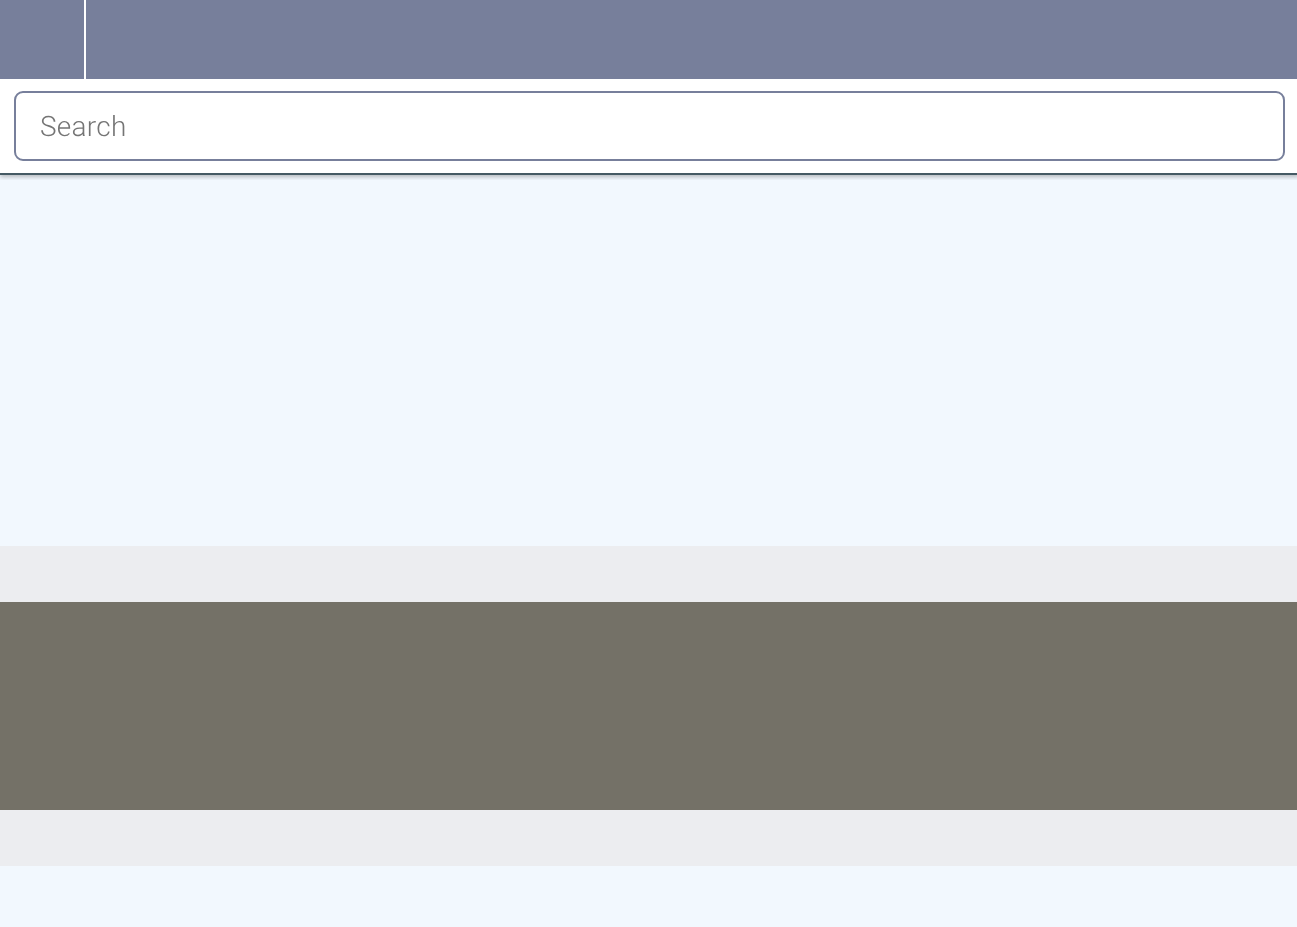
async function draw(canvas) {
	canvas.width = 1297;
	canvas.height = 927;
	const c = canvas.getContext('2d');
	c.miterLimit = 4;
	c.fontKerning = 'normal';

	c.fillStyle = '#f2f8fe';
	c.fillRect(0, 0, 1297, 927);
	for (const [x, y, w, h, color] of [
		[0, 79, 1297, 94, '#fff'],
		[0, 0, 1297, 79, '#777f9b'],
		[84, 0, 2, 79, '#fff'],
	]) {
		c.fillStyle = color;
		c.fillRect(x, y, w, h);
	}
	c.save();
	c.beginPath();
	c.rect(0, 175, 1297, 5);
	c.clip();
	c.fillStyle = '#00000040';
	c.filter = 'blur(2px)';
	c.beginPath();
	c.rect(0, 81, 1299, 96);
	c.fill();
	c.filter = 'none';
	c.restore();
	c.fillStyle = '#455a64';
	c.fillRect(0, 173, 1297, 2);
	c.beginPath();
	c.roundRect(15, 92, 1269, 68, 8);
	c.strokeStyle = '#777f9b';
	c.lineWidth = 2;
	c.stroke();
	c.letterSpacing = '0.25px';
	c.font = '300 28px Roboto';
	c.fillStyle = '#757575';
	c.fillText('Search', 40, 136);
	for (const [x, y, w, h, color] of [
		[0, 546, 1297, 56, '#ecedf0'],
		[0, 602, 1297, 208, '#747167'],
		[0, 810, 1297, 56, '#ecedf0'],
	]) {
		c.fillStyle = color;
		c.fillRect(x, y, w, h);
	}
}

draw(document.querySelector('canvas'));
